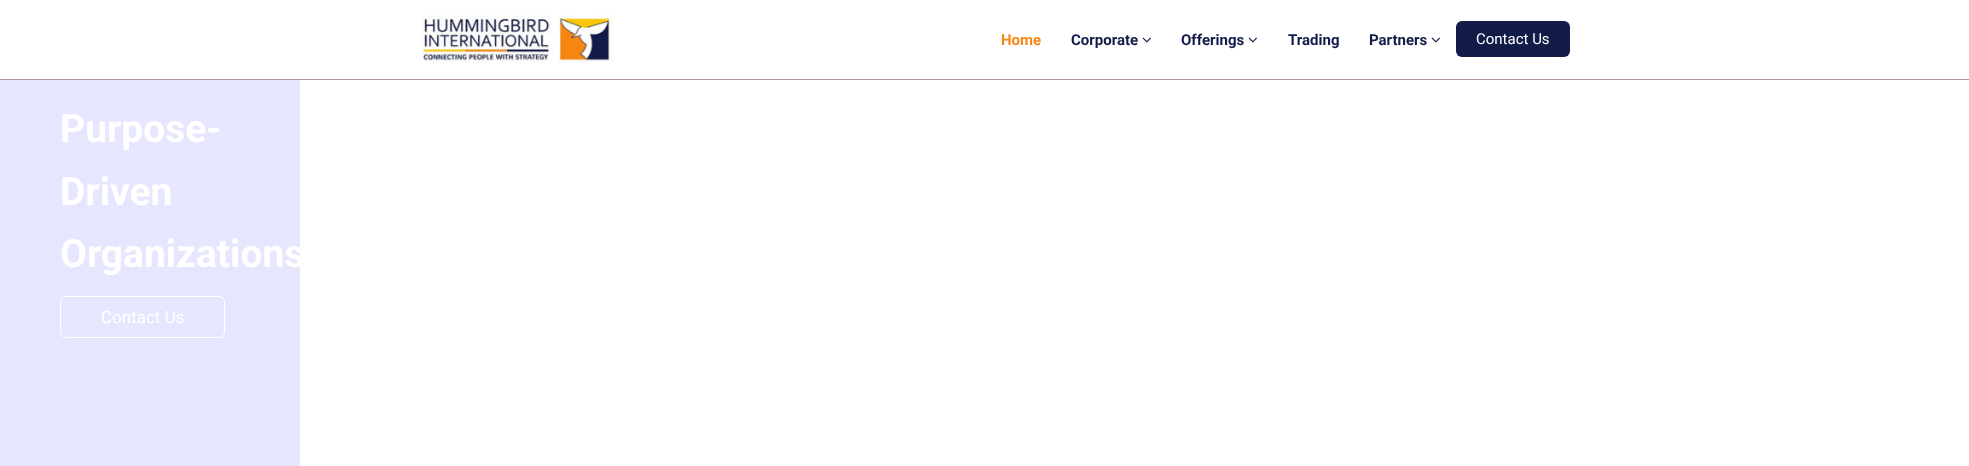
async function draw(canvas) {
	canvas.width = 1969;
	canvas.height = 466;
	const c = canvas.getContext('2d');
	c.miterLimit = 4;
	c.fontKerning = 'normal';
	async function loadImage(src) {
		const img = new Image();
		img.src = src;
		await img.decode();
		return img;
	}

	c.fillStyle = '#fff';
	c.fillRect(0, 0, 1969, 466);
	c.fillStyle = '#b19a9a';
	c.fillRect(0, 79, 1969, 1);
	c.drawImage(await loadImage('img1.png'), 422, 15, 191, 48);
	c.font = 'bold 15px Roboto';
	c.fillStyle = '#f68713';
	c.fillText('Home', 1001, 45);
	c.fillStyle = '#131b49';
	c.fillText('Corporate', 1071, 45);
	c.drawImage(await loadImage('img2.png'), 1142, 37, 9, 6);
	c.fillText('Offerings', 1181, 45);
	c.drawImage(await loadImage('img2.png'), 1248, 37, 9, 6);
	c.fillText('Trading', 1288, 45);
	c.fillText('Partners', 1369, 45);
	c.drawImage(await loadImage('img2.png'), 1431, 37, 9, 6);
	c.beginPath();
	c.roundRect(1456, 21, 114, 36, 6);
	c.fill();
	c.font = '15px Roboto';
	c.fillStyle = '#fff';
	c.fillText('Contact Us', 1476, 44);
	c.fillStyle = '#e6e6ff';
	c.fillRect(0, 80, 300, 386);
	c.font = 'bold 39px Roboto';
	c.fillStyle = '#fff';
	for (const [text, x, y] of [
		['Purpose-', 60, 142],
		['Driven', 60, 205],
		['Organizations', 60, 267],
	]) {
		c.fillText(text, x, y);
	}
	c.beginPath();
	c.roundRect(60.5, 296.5, 164, 41, 5.5);
	c.strokeStyle = '#fff';
	c.stroke();
	c.font = '17px Roboto';
	c.fillText('Contact Us', 101, 323);
}

draw(document.querySelector('canvas'));
